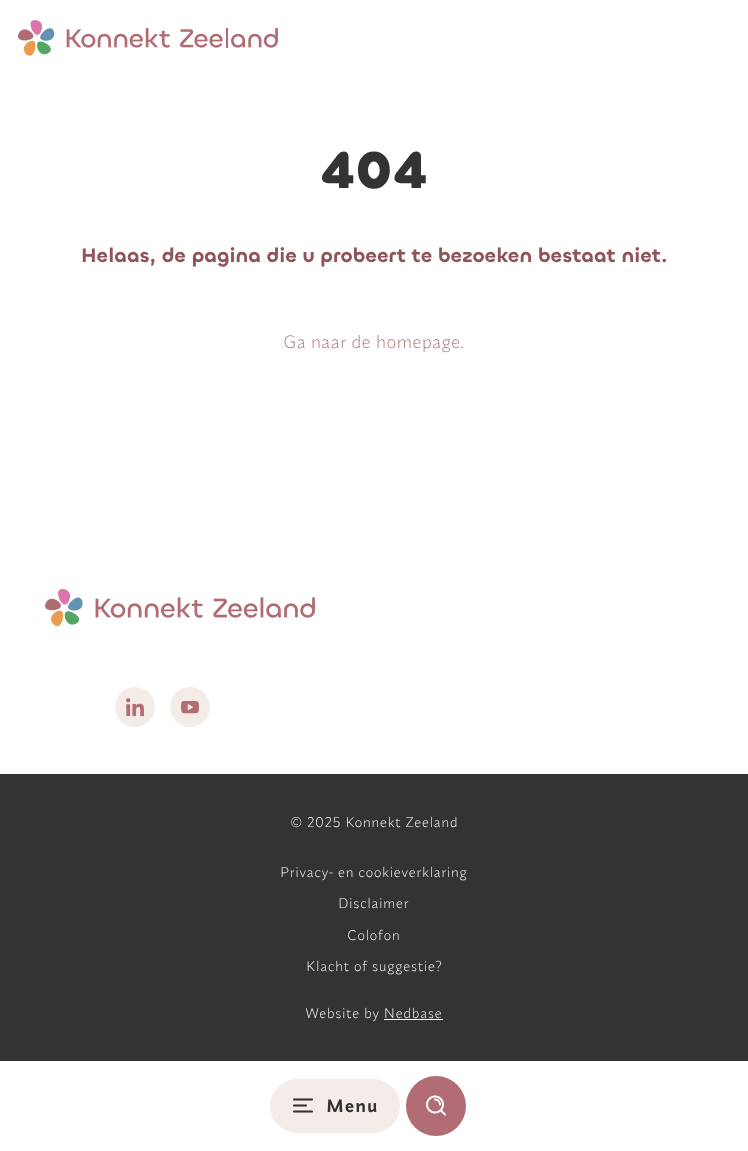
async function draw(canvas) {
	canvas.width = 748;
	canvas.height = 1151;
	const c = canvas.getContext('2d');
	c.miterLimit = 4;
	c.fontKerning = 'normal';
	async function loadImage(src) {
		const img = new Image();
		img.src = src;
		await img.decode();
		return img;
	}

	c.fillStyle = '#fff';
	c.fillRect(0, 0, 748, 1151);
	c.letterSpacing = '1px';
	c.font = 'bold 53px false';
	c.fillStyle = '#333';
	c.fillText('404', 321, 188);
	c.letterSpacing = '0px';
	c.font = '600 20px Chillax';
	c.fillStyle = '#8f545a';
	c.fillText('Helaas, de pagina die u probeert te bezoeken bestaat niet.', 81, 262);
	c.font = '300 18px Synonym';
	c.fillStyle = '#b16d73';
	c.fillText('Ga naar de homepage.', 283, 348);
	c.drawImage(await loadImage('img1.png'), 45, 589, 270, 37);
	c.fillStyle = '#f4ece9';
	c.beginPath();
	c.arc(135, 707, 20, 0, 2 * Math.PI);
	c.fill();
	c.drawImage(await loadImage('img2.png'), 126, 698, 18, 19);
	c.beginPath();
	c.arc(190, 707, 20, 0, 2 * Math.PI);
	c.fill();
	c.drawImage(await loadImage('img3.png'), 181, 701, 18, 13);
	c.fillStyle = '#333';
	c.fillRect(0, 774, 748, 287);
	c.letterSpacing = '0.4px';
	c.font = '300 14px Synonym';
	c.fillStyle = '#fff';
	for (const [text, x, y] of [
		['© 2025 Konnekt Zeeland', 290, 827],
		['Privacy- en cookieverklaring', 280, 877],
		['Disclaimer', 338, 908],
		['Colofon', 347, 940],
		['Klacht of suggestie?', 306, 971],
		['Website by Nedbase', 305, 1018],
	]) {
		c.fillText(text, x, y);
	}
	c.fillRect(384, 1019, 59, 1);
	c.drawImage(await loadImage('img4.png'), 18, 20, 260, 36);
	c.fillStyle = '#f4ece9';
	c.beginPath();
	c.roundRect(270.5, 1079.5, 129, 53, 26.5);
	c.fill();
	c.strokeStyle = '#f4ece9';
	c.stroke();
	c.drawImage(await loadImage('img5.png'), 293, 1098, 20, 15);
	c.letterSpacing = '1px';
	c.font = '600 18px Synonym';
	c.fillStyle = '#333';
	c.fillText('Menu', 326, 1112);
	c.fillStyle = '#b16d73';
	c.beginPath();
	c.arc(436, 1106, 30, 0, 2 * Math.PI);
	c.fill();
	c.drawImage(await loadImage('img6.png'), 426, 1095, 20, 21);
}

draw(document.querySelector('canvas'));
